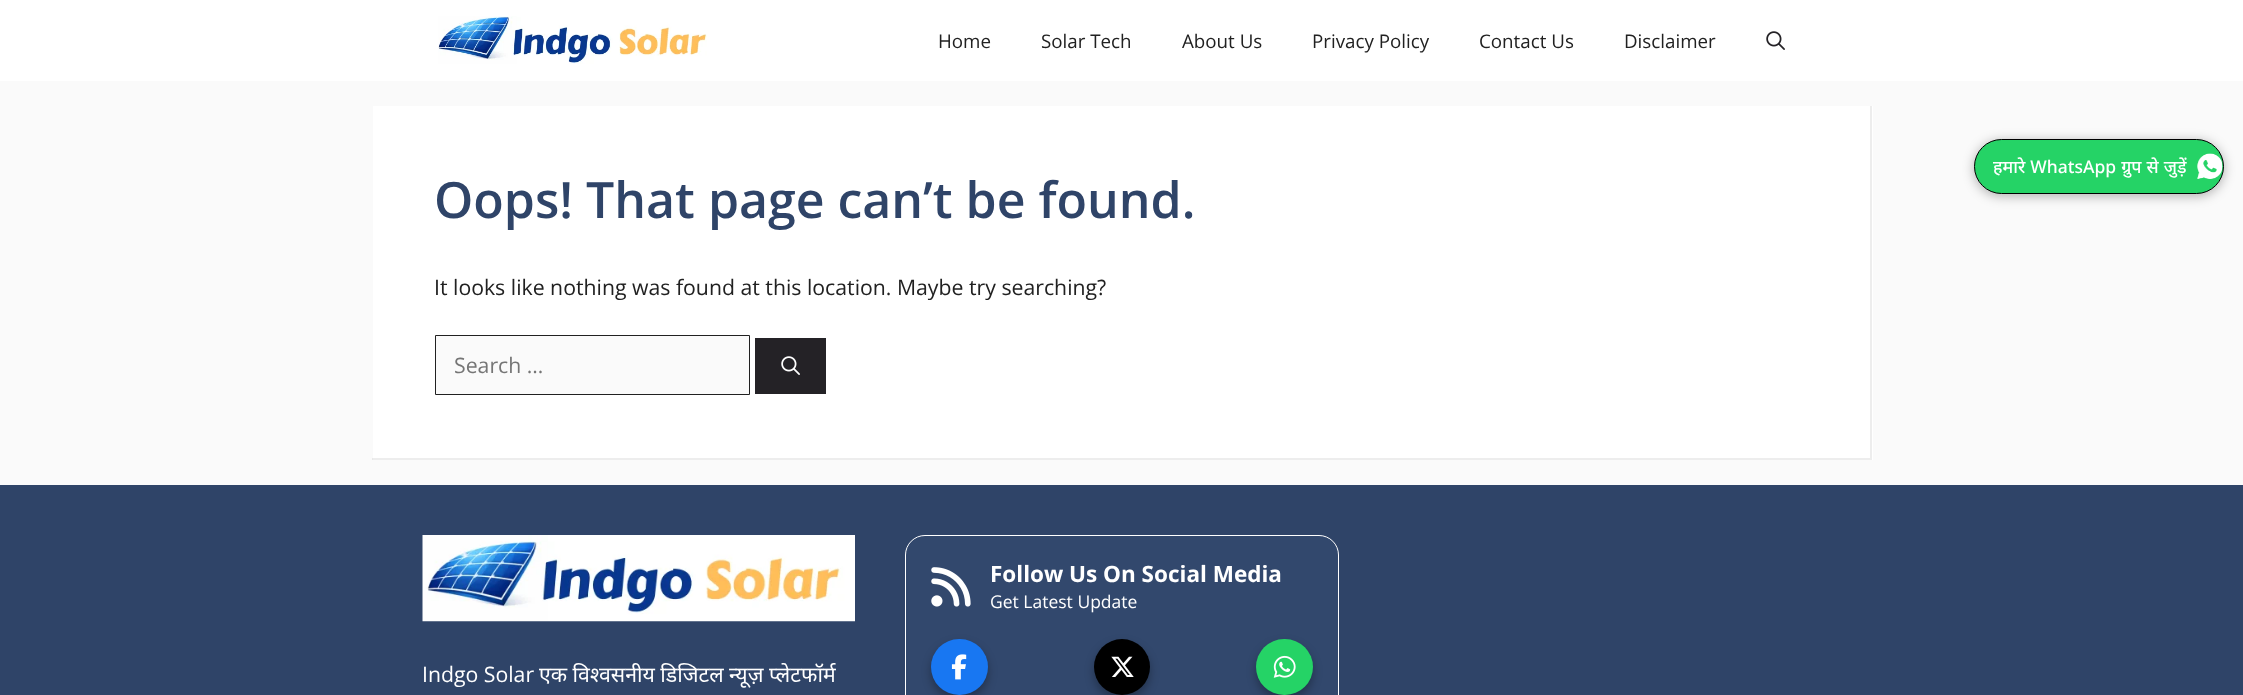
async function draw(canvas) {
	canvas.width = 2243;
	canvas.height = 695;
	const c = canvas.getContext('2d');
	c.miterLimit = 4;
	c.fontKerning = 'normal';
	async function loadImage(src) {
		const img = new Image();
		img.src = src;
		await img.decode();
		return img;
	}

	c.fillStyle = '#fafafa';
	c.fillRect(0, 0, 2243, 695);
	c.fillStyle = '#fff';
	c.fillRect(0, 0, 2243, 81);
	c.drawImage(await loadImage('img1.png'), 438, 16, 269, 48);
	c.font = '18.75px Open Sans';
	c.fillStyle = '#212121';
	for (const [text, x, y] of [
		['Home', 938, 48],
		['Solar Tech', 1041, 48],
		['About Us', 1182, 48],
		['Privacy Policy', 1312, 48],
		['Contact Us', 1479, 48],
		['Disclaimer', 1624, 48],
	]) {
		c.fillText(text, x, y);
	}
	c.drawImage(await loadImage('img2.png'), 1766, 31, 19, 19);
	c.fillStyle = '#0000004d';
	c.filter = 'blur(6px)';
	c.beginPath();
	c.roundRect(1974, 141, 250, 55, 27.5);
	c.fill();
	c.filter = 'none';
	c.fillStyle = '#25d366';
	c.beginPath();
	c.roundRect(1974.5, 139.5, 249, 54, 27);
	c.fill();
	c.strokeStyle = '#000';
	c.stroke();
	c.wordSpacing = '0.5px';
	c.font = '500 17.5px Noto Sans';
	c.fillStyle = '#fff';
	c.fillText('हमारे WhatsApp ग्रुप से जुड़ें', 1993, 173);
	c.drawImage(await loadImage('img3.png'), 2197, 153, 26, 26);
	c.fillRect(373, 106, 1500, 354);
	c.fillStyle = '#ededed';
	c.beginPath();
	c.moveTo(1872, 106);
	c.lineTo(1872, 460);
	c.lineTo(1870, 458);
	c.lineTo(1870, 106);
	c.closePath();
	c.fill();
	c.fillStyle = '#00000012';
	c.beginPath();
	c.moveTo(1872, 460);
	c.lineTo(372, 460);
	c.lineTo(372, 458);
	c.lineTo(1870, 458);
	c.closePath();
	c.fill();
	c.wordSpacing = '0px';
	c.font = '600 50px Open Sans';
	c.fillStyle = '#2f4468';
	c.fillText('Oops! That page can’t be found.', 434, 218);
	c.font = '21.25px Open Sans';
	c.fillStyle = '#212121';
	c.fillText('It looks like nothing was found at this location. Maybe try searching?', 434, 295);
	c.fillStyle = '#fafafa';
	c.beginPath();
	c.rect(435.5, 335.5, 314, 59);
	c.fill();
	c.strokeStyle = '#212121';
	c.stroke();
	c.fillStyle = '#757575';
	c.fillText('Search …', 454, 373);
	c.fillStyle = '#242226';
	c.fillRect(755, 338, 71, 56);
	c.drawImage(await loadImage('img4.png'), 781, 356, 19, 19);
	c.fillStyle = '#2f4468';
	c.fillRect(0, 485, 2243, 210);
	c.fillStyle = '#32486d';
	c.beginPath();
	c.roundRect(905.5, 535.5, 433, 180, 19.5);
	c.fill();
	c.strokeStyle = '#fff';
	c.stroke();
	c.drawImage(await loadImage('img5.png'), 931, 567, 40, 40);
	c.font = 'bold 22.5px Open Sans';
	c.fillStyle = '#fff';
	c.fillText('Follow Us On Social Media', 990, 582);
	c.font = '17.5px Open Sans';
	c.fillText('Get Latest Update', 990, 608);
	c.fillStyle = '#0000004d';
	c.filter = 'blur(5px)';
	c.beginPath();
	c.roundRect(931, 644, 57, 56, 28);
	c.fill();
	c.filter = 'none';
	c.fillStyle = '#1877f2';
	c.beginPath();
	c.roundRect(931, 639, 57, 56, 28);
	c.fill();
	c.drawImage(await loadImage('img6.png'), 951, 654, 16, 26);
	c.fillStyle = '#0000004d';
	c.filter = 'blur(5px)';
	c.beginPath();
	c.roundRect(1094, 644, 56, 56, 28);
	c.fill();
	c.filter = 'none';
	c.fillStyle = '#000';
	c.beginPath();
	c.arc(1122, 667, 28, 0, 2 * Math.PI);
	c.fill();
	c.drawImage(await loadImage('img7.png'), 1111, 656, 23, 21);
	c.fillStyle = '#0000004d';
	c.filter = 'blur(5px)';
	c.beginPath();
	c.roundRect(1256, 644, 57, 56, 28);
	c.fill();
	c.filter = 'none';
	c.fillStyle = '#25d366';
	c.beginPath();
	c.roundRect(1256, 639, 57, 56, 28);
	c.fill();
	c.drawImage(await loadImage('img8.png'), 1273, 655, 23, 23);
	c.drawImage(await loadImage('img9.png'), 422, 535, 433, 87);
	c.font = '21.25px Open Sans';
	c.fillStyle = '#fff';
	c.fillText('Indgo Solar', 422, 682);
	c.font = '21.25px Noto Sans';
	c.fillText('एक विश्वसनीय डिजिटल न्यूज़ प्लेटफॉर्म', 539, 682);
}

draw(document.querySelector('canvas'));
